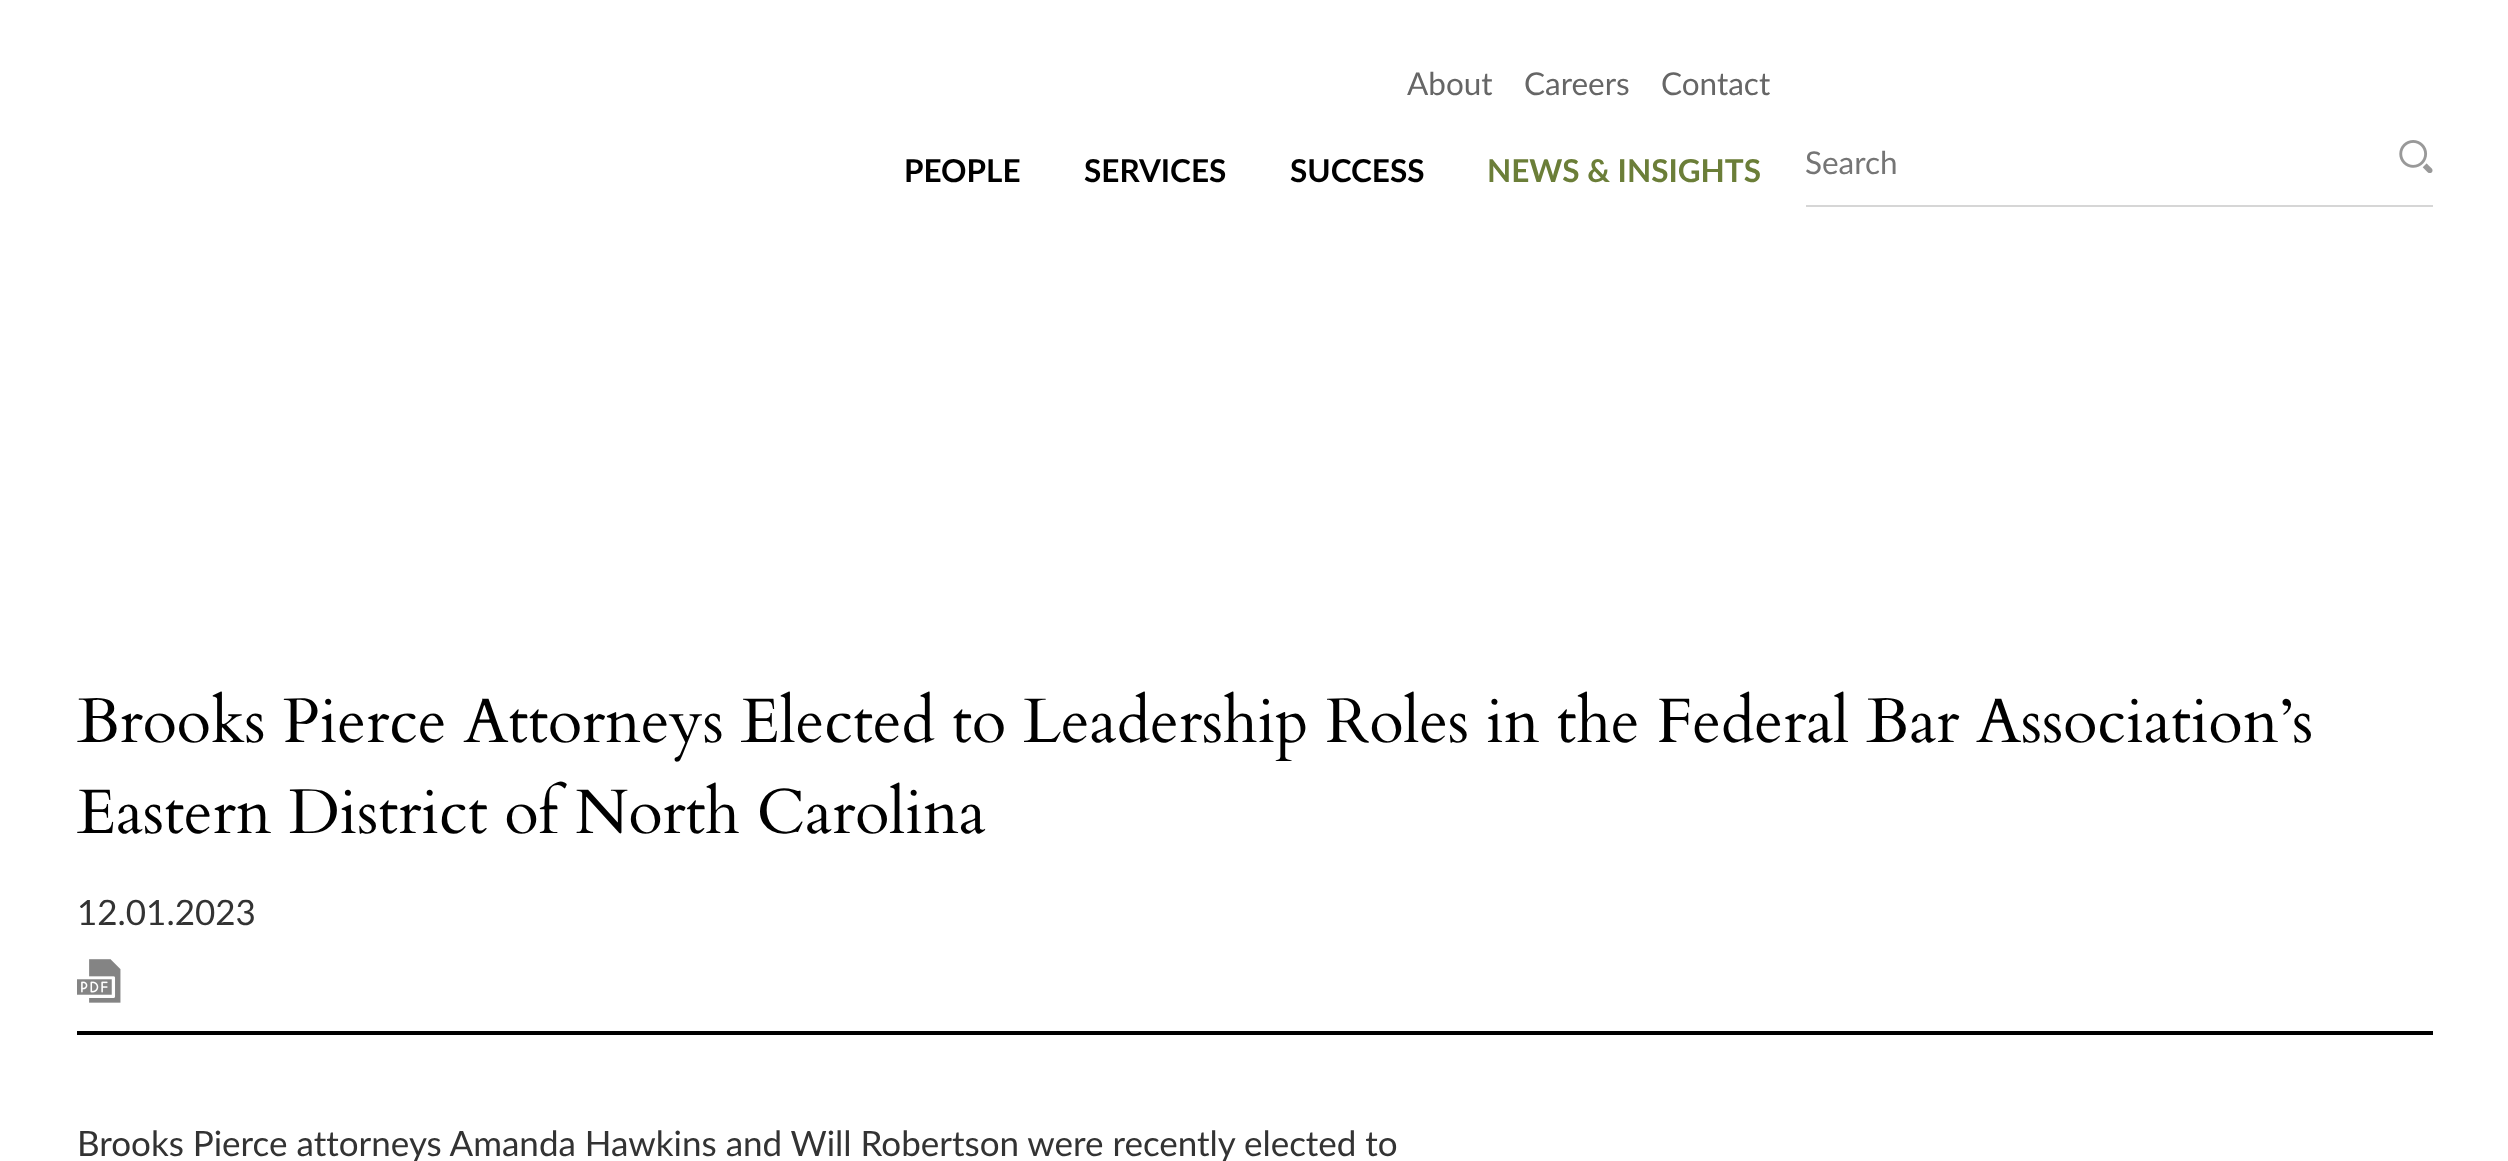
async function draw(canvas) {
	canvas.width = 2508;
	canvas.height = 1161;
	const c = canvas.getContext('2d');
	c.miterLimit = 4;
	c.fontKerning = 'normal';
	async function loadImage(src) {
		const img = new Image();
		img.src = src;
		await img.decode();
		return img;
	}

	c.fillStyle = '#fff';
	c.fillRect(0, 0, 2508, 1161);
	c.font = '31.5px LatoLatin';
	c.fillStyle = '#666';
	for (const [text, x, y] of [
		['About', 1407, 95],
		['Careers', 1524, 95],
		['Contact', 1661, 95],
	]) {
		c.fillText(text, x, y);
	}
	c.font = 'bold 31.5px LatoLatin';
	c.fillStyle = '#000';
	for (const [text, x, y] of [
		['PEOPLE', 904, 182],
		['SERVICES', 1084, 182],
		['SUCCESS', 1290, 182],
	]) {
		c.fillText(text, x, y);
	}
	c.fillStyle = '#6b7e38';
	c.fillText('NEWS & INSIGHTS', 1487, 182);
	c.fillStyle = '#d6d6d6';
	c.fillRect(1806, 205, 627, 2);
	c.font = '31.5px LatoLatin';
	c.fillStyle = '#757575';
	c.fillText('Search', 1805, 174);
	c.drawImage(await loadImage('img1.png'), 2399, 140, 34, 33);
	c.fillStyle = '#000';
	c.fillRect(77, 1031, 2356, 4);
	c.font = '63px Cardo';
	c.fillText('Brooks Pierce Attorneys Elected to Leadership Roles in the Federal Bar Association’s', 77, 742);
	c.fillText('Eastern District of North Carolina', 77, 833);
	c.font = '35px LatoLatin';
	c.fillStyle = '#333';
	c.fillText('12.01.2023', 77, 925);
	c.drawImage(await loadImage('img2.png'), 77, 959, 44, 44);
	c.fillText('Brooks Pierce attorneys Amanda Hawkins and Will Robertson were recently elected to', 77, 1156);
}

draw(document.querySelector('canvas'));
